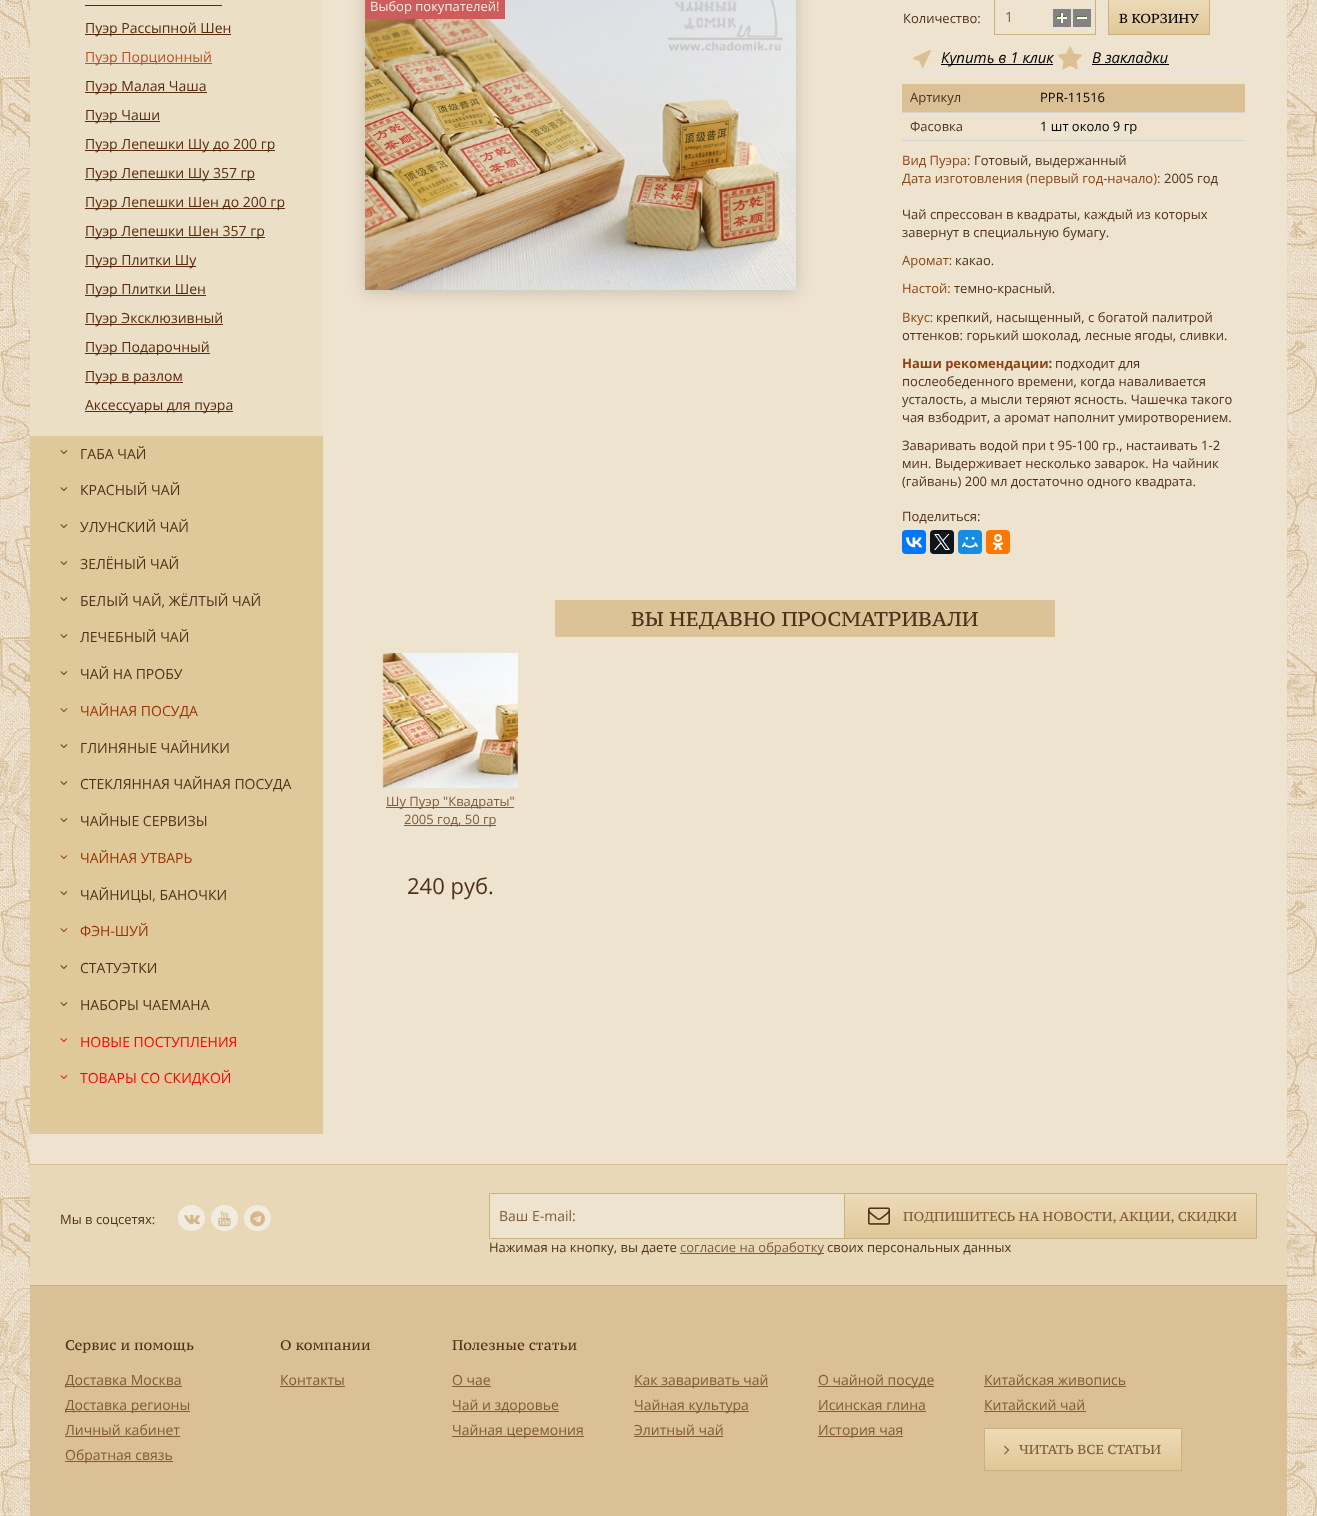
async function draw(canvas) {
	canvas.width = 1317;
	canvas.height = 1516;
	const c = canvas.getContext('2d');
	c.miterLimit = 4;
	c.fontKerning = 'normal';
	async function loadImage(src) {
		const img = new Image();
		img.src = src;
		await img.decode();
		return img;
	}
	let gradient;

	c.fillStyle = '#fff';
	c.fillRect(0, 0, 1317, 1516);
	c.drawImage(await loadImage('img1.png'), 0, 0, 1317, 1516);
	for (const [x, y, w, h, color] of [
		[30, 0, 1257, 1164, '#eee3cf'],
		[30, 436, 293, 698, '#dfc99a'],
		[30, 0, 293, 436, '#ebdfc7'],
		[85, 5, 137, 1, '#5a2b0d'],
		[85, 34, 146, 1, '#5a2b0d'],
	]) {
		c.fillStyle = color;
		c.fillRect(x, y, w, h);
	}
	c.font = '14px Open Sans';
	c.fillText('Пуэр Рассыпной Шен', 85, 33);
	c.fillStyle = '#b45423';
	c.fillRect(85, 63, 127, 1);
	c.fillText('Пуэр Порционный', 85, 62);
	c.fillStyle = '#5a2b0d';
	c.fillRect(85, 92, 122, 1);
	c.fillText('Пуэр Малая Чаша', 85, 91);
	c.fillRect(85, 121, 75, 1);
	c.fillText('Пуэр Чаши', 85, 120);
	c.fillRect(85, 150, 190, 1);
	c.fillText('Пуэр Лепешки Шу до 200 гр', 85, 149);
	c.fillRect(85, 179, 170, 1);
	c.fillText('Пуэр Лепешки Шу 357 гр', 85, 178);
	c.fillRect(85, 208, 200, 1);
	c.fillText('Пуэр Лепешки Шен до 200 гр', 85, 207);
	c.fillRect(85, 237, 180, 1);
	c.fillText('Пуэр Лепешки Шен 357 гр', 85, 236);
	c.fillRect(85, 266, 111, 1);
	c.fillText('Пуэр Плитки Шу', 85, 265);
	c.fillRect(85, 295, 121, 1);
	c.fillText('Пуэр Плитки Шен', 85, 294);
	c.fillRect(85, 324, 138, 1);
	c.fillText('Пуэр Эксклюзивный', 85, 323);
	c.fillRect(85, 353, 125, 1);
	c.fillText('Пуэр Подарочный', 85, 352);
	c.fillRect(85, 382, 98, 1);
	c.fillText('Пуэр в разлом', 85, 381);
	c.fillRect(85, 411, 148, 1);
	c.fillText('Аксессуары для пуэра', 85, 410);
	c.drawImage(await loadImage('img2.png'), 60, 450, 8, 4);
	c.fillStyle = '#50301a';
	c.fillText('ГАБА ЧАЙ', 80, 459);
	c.drawImage(await loadImage('img2.png'), 60, 487, 8, 4);
	c.fillText('КРАСНЫЙ ЧАЙ', 80, 495);
	c.drawImage(await loadImage('img2.png'), 60, 524, 8, 4);
	c.fillText('УЛУНСКИЙ ЧАЙ', 80, 532);
	c.drawImage(await loadImage('img2.png'), 60, 561, 8, 4);
	c.fillText('ЗЕЛЁНЫЙ ЧАЙ', 80, 569);
	c.drawImage(await loadImage('img2.png'), 60, 597, 8, 4);
	c.fillText('БЕЛЫЙ ЧАЙ, ЖЁЛТЫЙ ЧАЙ', 80, 606);
	c.drawImage(await loadImage('img2.png'), 60, 634, 8, 4);
	c.fillText('ЛЕЧЕБНЫЙ ЧАЙ', 80, 642);
	c.drawImage(await loadImage('img2.png'), 60, 671, 8, 4);
	c.fillText('ЧАЙ НА ПРОБУ', 80, 679);
	c.drawImage(await loadImage('img3.png'), 60, 708, 8, 4);
	c.fillStyle = '#930';
	c.fillText('ЧАЙНАЯ ПОСУДА', 80, 716);
	c.drawImage(await loadImage('img2.png'), 60, 744, 8, 4);
	c.fillStyle = '#50301a';
	c.fillText('ГЛИНЯНЫЕ ЧАЙНИКИ', 80, 753);
	c.drawImage(await loadImage('img2.png'), 60, 781, 8, 4);
	c.fillText('СТЕКЛЯННАЯ ЧАЙНАЯ ПОСУДА', 80, 789);
	c.drawImage(await loadImage('img2.png'), 60, 818, 8, 4);
	c.fillText('ЧАЙНЫЕ СЕРВИЗЫ', 80, 826);
	c.drawImage(await loadImage('img3.png'), 60, 855, 8, 4);
	c.fillStyle = '#930';
	c.fillText('ЧАЙНАЯ УТВАРЬ', 80, 863);
	c.drawImage(await loadImage('img2.png'), 60, 891, 8, 4);
	c.fillStyle = '#50301a';
	c.fillText('ЧАЙНИЦЫ, БАНОЧКИ', 80, 900);
	c.drawImage(await loadImage('img3.png'), 60, 928, 8, 4);
	c.fillStyle = '#930';
	c.fillText('ФЭН-ШУЙ', 80, 936);
	c.drawImage(await loadImage('img2.png'), 60, 965, 8, 4);
	c.fillStyle = '#50301a';
	c.fillText('СТАТУЭТКИ', 80, 973);
	c.drawImage(await loadImage('img2.png'), 60, 1002, 8, 4);
	c.fillText('НАБОРЫ ЧАЕМАНА', 80, 1010);
	c.drawImage(await loadImage('img4.png'), 60, 1038, 8, 4);
	c.fillStyle = '#f00';
	c.fillText('НОВЫЕ ПОСТУПЛЕНИЯ', 80, 1047);
	c.drawImage(await loadImage('img4.png'), 60, 1075, 8, 4);
	c.fillText('ТОВАРЫ СО СКИДКОЙ', 80, 1083);
	c.fillStyle = '#1818192e';
	c.filter = 'blur(8px)';
	c.beginPath();
	c.rect(365, -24, 431, 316);
	c.fill();
	c.filter = 'none';
	c.drawImage(await loadImage('img5.png'), 365, 0, 431, 290);
	c.fillStyle = '#cd5c5c';
	c.fillRect(365, 0, 140, 19);
	c.font = '13px Open Sans';
	c.fillStyle = '#efede7';
	c.fillText('Выбор покупателей!', 370, 11);
	c.strokeStyle = '#e5e5e5';
	c.strokeRect(902.5, -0.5, 342, 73);
	c.fillStyle = '#50301a';
	c.fillText('Количество:', 903, 23);
	c.strokeStyle = '#cbb17e';
	c.strokeRect(994.5, -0.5, 101, 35);
	c.font = '14px Open Sans';
	c.fillStyle = '#805c37';
	c.fillText('1', 1005, 22);
	c.drawImage(await loadImage('img6.png'), 1053, 9, 18, 18);
	c.drawImage(await loadImage('img7.png'), 1073, 9, 18, 18);
	gradient = c.createLinearGradient(1159, 34, 1159, 0);
	gradient.addColorStop(0, '#dfc797');
	gradient.addColorStop(1, '#eddbb8');
	c.fillStyle = gradient;
	c.fillRect(1109, 0, 100, 34);
	c.strokeRect(1108.5, -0.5, 101, 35);
	c.font = '13px PT Serif Caption';
	c.fillStyle = '#000';
	c.fillText('В КОРЗИНУ', 1119, 23);
	c.drawImage(await loadImage('img8.png'), 913, 50, 18, 18);
	c.fillRect(941, 64, 112, 1);
	c.font = 'italic 15px Open Sans';
	c.fillText('Купить в 1 клик', 941, 63);
	c.drawImage(await loadImage('img9.png'), 1058, 46, 24, 24);
	c.fillText('В закладки', 1092, 63);
	c.fillRect(1092, 64, 77, 1);
	c.fillStyle = '#dac094';
	c.fillRect(902, 84, 343, 28);
	c.font = '13px Open Sans';
	c.fillStyle = '#50301a';
	c.fillText('Артикул', 910, 102);
	c.fillStyle = '#000';
	c.fillText('PPR-11516', 1040, 102);
	c.fillStyle = '#50301a';
	c.fillText('Фасовка', 910, 131);
	c.fillStyle = '#d4d4d4';
	c.fillRect(902, 112, 343, 1);
	c.fillRect(902, 140, 343, 1);
	c.fillStyle = '#000';
	c.fillText('1 шт около 9 гр', 1040, 131);
	c.fillStyle = '#8b4513';
	c.fillText('Вид Пуэра:', 902, 165);
	c.fillStyle = '#50301a';
	c.fillText('Готовый, выдержанный', 974, 165);
	c.save();
	c.beginPath();
	c.rect(902, 0, 343, 570);
	c.clip();
	c.fillStyle = '#8b4513';
	c.fillText('Дата изготовления (первый год-начало):', 902, 183);
	c.restore();
	for (const [text, x, y] of [
		['2005 год', 1164, 183],
		['Чай спрессован в квадраты, каждый из которых', 902, 219],
		['завернут в специальную бумагу.', 902, 237],
	]) {
		c.fillText(text, x, y);
	}
	c.fillStyle = '#8b4513';
	c.fillText('Аромат:', 902, 265);
	c.fillStyle = '#50301a';
	c.fillText('какао.', 955, 265);
	c.fillStyle = '#8b4513';
	c.fillText('Настой:', 902, 293);
	c.fillStyle = '#50301a';
	c.fillText('темно-красный.', 954, 293);
	c.fillStyle = '#8b4513';
	c.fillText('Вкус:', 902, 322);
	c.fillStyle = '#50301a';
	c.fillText('крепкий, насыщенный, с богатой палитрой', 936, 322);
	c.fillText('оттенков: горький шоколад, лесные ягоды, сливки.', 902, 340);
	c.font = 'bold 13px Open Sans';
	c.fillStyle = '#8b4513';
	c.fillText('Наши рекомендации:', 902, 368);
	c.font = '13px Open Sans';
	c.fillStyle = '#50301a';
	for (const [text, x, y] of [
		['подходит для', 1055, 368],
		['послеобеденного времени, когда наваливается', 902, 386],
		['усталость, а мысли теряют ясность. Чашечка такого', 902, 404],
		['чая взбодрит, а аромат наполнит умиротворением.', 902, 422],
		['Заваривать водой при t 95-100 гр., настаивать 1-2', 902, 450],
		['мин. Выдерживает несколько заварок. На чайник', 902, 468],
		['(гайвань) 200 мл достаточно одного квадрата.', 902, 486],
		['Поделиться:', 902, 521],
	]) {
		c.fillText(text, x, y);
	}
	c.fillStyle = '#07f';
	c.beginPath();
	c.roundRect(902, 530, 24, 24, 4);
	c.fill();
	c.drawImage(await loadImage('img10.png'), 906, 537, 16, 11);
	c.fillStyle = '#0f1419';
	c.beginPath();
	c.roundRect(930, 530, 24, 24, 4);
	c.fill();
	c.drawImage(await loadImage('img11.png'), 934, 534, 16, 16);
	c.fillStyle = '#168de2';
	c.beginPath();
	c.roundRect(958, 530, 24, 24, 4);
	c.fill();
	c.drawImage(await loadImage('img12.png'), 962, 537, 16, 11);
	c.fillStyle = '#f70';
	c.beginPath();
	c.roundRect(986, 530, 24, 24, 4);
	c.fill();
	c.drawImage(await loadImage('img13.png'), 992, 534, 12, 16);
	c.fillStyle = '#dbc297';
	c.fillRect(555, 600, 500, 37);
	c.font = '20px PT Serif Caption';
	c.fillStyle = '#50301a';
	c.fillText('ВЫ НЕДАВНО ПРОСМАТРИВАЛИ', 631, 626);
	c.drawImage(await loadImage('img14.png'), 382, 653, 136, 135);
	c.fillStyle = '#805c37';
	c.fillRect(386, 807, 128, 1);
	c.font = '13px Open Sans';
	c.fillText('Шу Пуэр "Квадраты"', 386, 806);
	c.fillRect(404, 825, 92, 1);
	c.fillText('2005 год, 50 гр', 404, 824);
	c.font = '22px Open Sans';
	c.fillStyle = '#50301a';
	c.fillText('240 руб.', 407, 894);
	c.fillStyle = '#e8d8b7';
	c.fillRect(30, 1165, 1257, 120);
	c.fillStyle = '#d2bd91';
	c.fillRect(30, 1164, 1257, 1);
	c.font = '13px Open Sans';
	c.fillStyle = '#50301a';
	c.fillText('Мы в соцсетях:', 60, 1224);
	c.fillStyle = '#f2ebdf';
	c.beginPath();
	c.roundRect(178, 1205, 27, 26, 13);
	c.fill();
	c.drawImage(await loadImage('img15.png'), 184, 1214, 16, 11);
	c.beginPath();
	c.roundRect(211, 1205, 27, 26, 13);
	c.fill();
	c.drawImage(await loadImage('img16.png'), 218, 1211, 13, 16);
	c.beginPath();
	c.roundRect(244, 1205, 27, 26, 13);
	c.fill();
	c.drawImage(await loadImage('img17.png'), 250, 1211, 15, 16);
	c.fillStyle = '#eee3cf';
	c.beginPath();
	c.rect(489.5, 1193.5, 355, 45);
	c.fill();
	c.stroke();
	c.font = '14px Open Sans';
	c.fillStyle = '#805c37';
	c.fillText('Ваш E-mail:', 499, 1221);
	gradient = c.createLinearGradient(1051, 1238, 1051, 1194);
	gradient.addColorStop(0, '#dfc797');
	gradient.addColorStop(1, '#eddbb8');
	c.fillStyle = gradient;
	c.fillRect(845, 1194, 411, 44);
	for (const [x, y, w, h, color] of [
		[845, 1193, 412, 1, '#cbb17e'],
		[1256, 1193, 1, 46, '#cbb17e'],
		[845, 1238, 412, 1, '#cbb17e'],
	]) {
		c.fillStyle = color;
		c.fillRect(x, y, w, h);
	}
	c.drawImage(await loadImage('img18.png'), 868, 1207, 22, 18);
	c.font = '13px PT Serif Caption';
	c.fillStyle = '#805c37';
	c.fillText('ПОДПИШИТЕСЬ НА НОВОСТИ, АКЦИИ, СКИДКИ', 903, 1221);
	c.font = '13px Open Sans';
	c.fillStyle = '#50301a';
	c.fillText('Нажимая на кнопку, вы даете', 489, 1252);
	c.fillStyle = '#805c37';
	c.fillRect(680, 1253, 144, 1);
	c.fillText('согласие на обработку', 680, 1252);
	c.fillStyle = '#50301a';
	c.fillText('своих персональных данных', 827, 1252);
	c.fillStyle = '#dac094';
	c.fillRect(30, 1286, 1257, 230);
	c.fillStyle = '#cbb17f';
	c.fillRect(30, 1285, 1257, 1);
	c.font = '14px PT Serif Caption';
	c.fillStyle = '#50301a';
	c.fillText('Сервис и помощь', 65, 1350);
	c.fillStyle = '#805c37';
	c.fillRect(65, 1386, 117, 1);
	c.font = '14px Open Sans';
	c.fillText('Доставка Москва', 65, 1385);
	c.fillRect(65, 1411, 125, 1);
	c.fillText('Доставка регионы', 65, 1410);
	c.fillText('Личный кабинет', 65, 1435);
	c.fillRect(65, 1436, 115, 1);
	c.fillRect(65, 1461, 108, 1);
	c.fillText('Обратная связь', 65, 1460);
	c.font = '14px PT Serif Caption';
	c.fillStyle = '#50301a';
	c.fillText('О компании', 280, 1350);
	c.font = '14px Open Sans';
	c.fillStyle = '#805c37';
	c.fillText('Контакты', 280, 1385);
	c.fillRect(280, 1386, 65, 1);
	c.font = '14px PT Serif Caption';
	c.fillStyle = '#50301a';
	c.fillText('Полезные статьи', 452, 1350);
	c.font = '14px Open Sans';
	c.fillStyle = '#805c37';
	c.fillText('О чае', 452, 1385);
	c.fillRect(452, 1386, 39, 1);
	c.fillRect(452, 1411, 107, 1);
	c.fillText('Чай и здоровье', 452, 1410);
	c.fillRect(452, 1436, 132, 1);
	c.fillText('Чайная церемония', 452, 1435);
	c.fillRect(634, 1386, 134, 1);
	c.fillText('Как заваривать чай', 634, 1385);
	c.fillRect(634, 1411, 115, 1);
	c.fillText('Чайная культура', 634, 1410);
	c.fillText('Элитный чай', 634, 1435);
	c.fillRect(634, 1436, 89, 1);
	c.fillRect(818, 1386, 116, 1);
	c.fillText('О чайной посуде', 818, 1385);
	c.fillText('Исинская глина', 818, 1410);
	c.fillRect(818, 1411, 108, 1);
	c.fillRect(818, 1436, 85, 1);
	c.fillText('История чая', 818, 1435);
	c.fillText('Китайская живопись', 984, 1385);
	c.fillRect(984, 1386, 142, 1);
	c.fillText('Китайский чай', 984, 1410);
	c.fillRect(984, 1411, 102, 1);
	gradient = c.createLinearGradient(1083, 1470, 1083, 1429);
	gradient.addColorStop(0, '#dfc797');
	gradient.addColorStop(1, '#eddbb8');
	c.fillStyle = gradient;
	c.fillRect(985, 1429, 196, 41);
	c.strokeRect(984.5, 1428.5, 197, 42);
	c.drawImage(await loadImage('img19.png'), 1004, 1445, 6, 10);
	c.font = '13px PT Serif Caption';
	c.fillStyle = '#805c37';
	c.fillText('ЧИТАТЬ ВСЕ СТАТЬИ', 1019, 1454);
}

draw(document.querySelector('canvas'));
